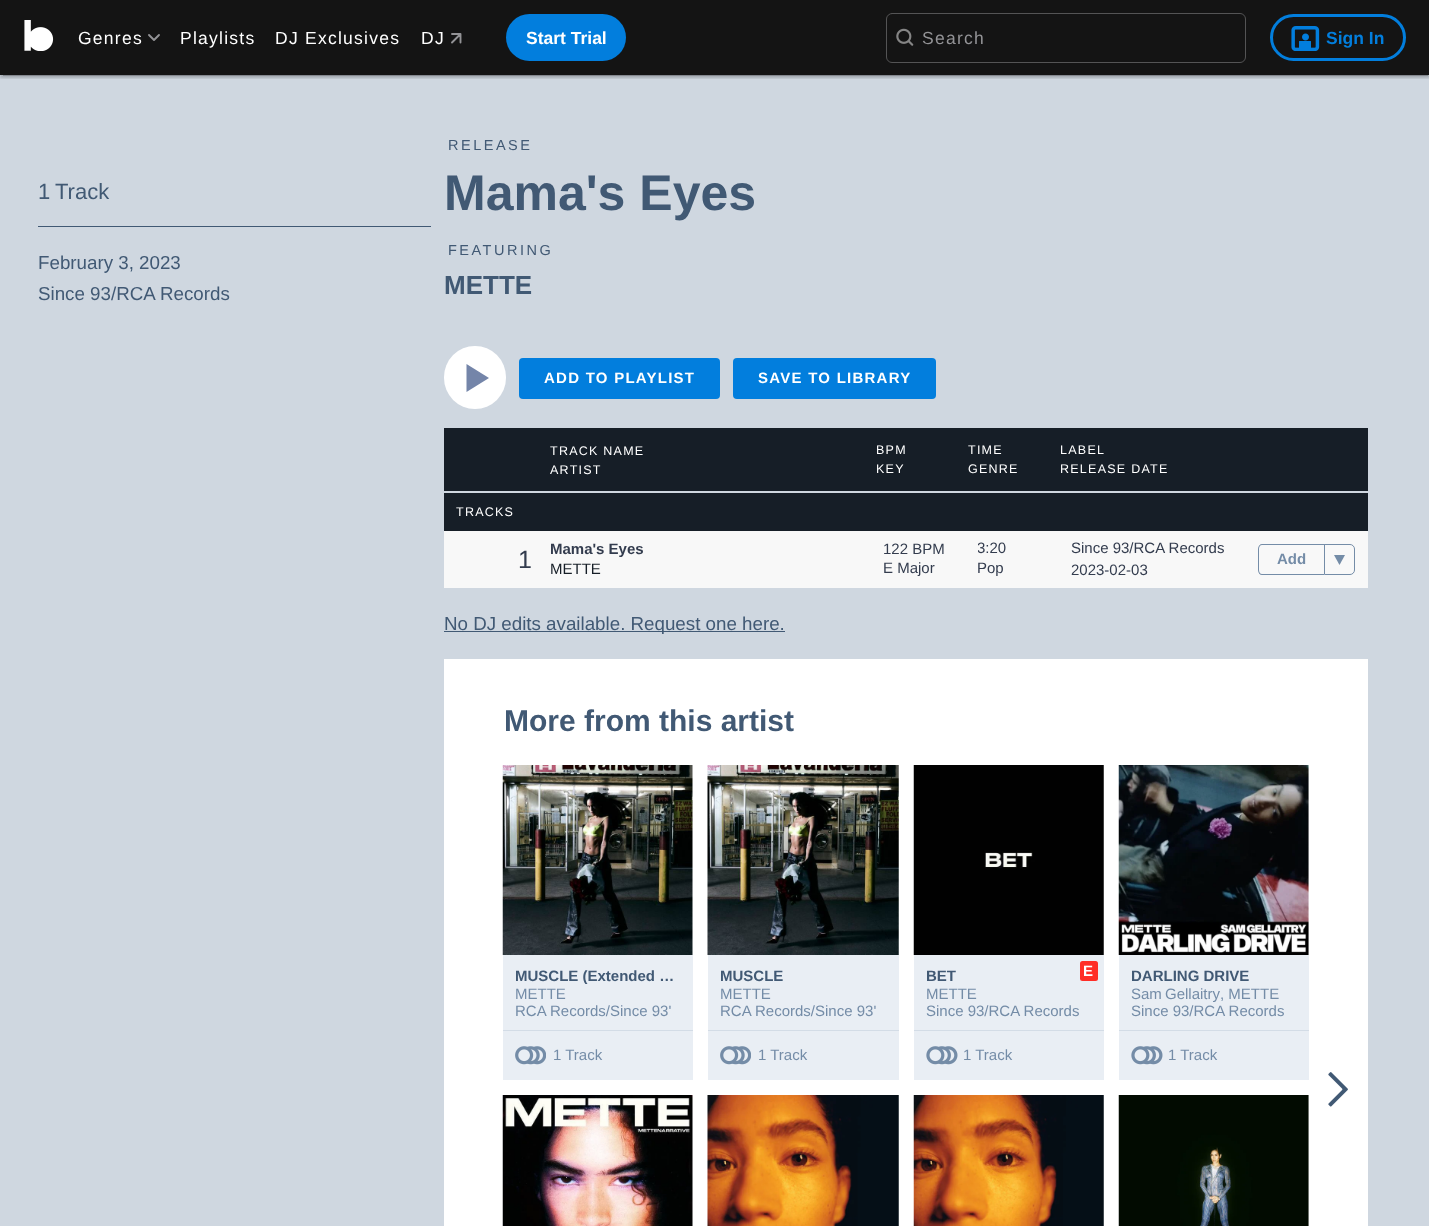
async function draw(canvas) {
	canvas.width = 1429;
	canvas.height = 1226;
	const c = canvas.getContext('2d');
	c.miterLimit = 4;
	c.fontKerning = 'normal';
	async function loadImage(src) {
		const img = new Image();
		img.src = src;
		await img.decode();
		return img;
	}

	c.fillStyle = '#cfd7e0';
	c.fillRect(0, 0, 1429, 1226);
	c.fillStyle = '#141414';
	c.fillRect(0, 0, 1429, 75);
	c.drawImage(await loadImage('img1.png'), 24, 20, 30, 31);
	c.beginPath();
	c.moveTo(149, 35);
	c.lineTo(154, 40);
	c.lineTo(159, 35);
	c.strokeStyle = '#939396';
	c.lineWidth = 1.9;
	c.lineCap = 'round';
	c.lineJoin = 'round';
	c.stroke();
	c.beginPath();
	c.moveTo(460.5, 42.5);
	c.lineTo(460.5, 34);
	c.lineTo(452, 34);
	c.moveTo(452, 42.5);
	c.lineTo(460, 34.5);
	c.closePath();
	c.stroke();
	c.fillStyle = '#027edd';
	c.beginPath();
	c.roundRect(506, 14, 120, 47, 23.5);
	c.fill();
	c.beginPath();
	c.roundRect(1271.5, 15.5, 133, 44, 22);
	c.strokeStyle = '#027edd';
	c.lineWidth = 3;
	c.lineJoin = 'miter';
	c.stroke();
	c.drawImage(await loadImage('img3.png'), 1291, 26, 29, 25);
	c.save();
	c.beginPath();
	c.rect(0, 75, 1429, 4);
	c.clip();
	c.fillStyle = '#0000001f';
	c.filter = 'blur(3px)';
	c.beginPath();
	c.rect(0, 1, 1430, 75);
	c.fill();
	c.filter = 'none';
	c.fillStyle = '#00000024';
	c.filter = 'blur(1px)';
	c.beginPath();
	c.rect(0, 3, 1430, 75);
	c.fill();
	c.filter = 'none';
	c.restore();
	c.save();
	c.beginPath();
	c.rect(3, 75, 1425, 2);
	c.clip();
	c.fillStyle = '#00000033';
	c.filter = 'blur(0.5px)';
	c.beginPath();
	c.rect(3, 6, 1425, 70);
	c.fill();
	c.filter = 'none';
	c.restore();
	c.letterSpacing = '1.25px';
	c.font = '17.5px Liberation Sans';
	c.fillStyle = '#fff';
	for (const [text, x, y] of [
		['Genres', 78, 44],
		['Playlists', 180, 44],
		['DJ Exclusives', 275, 44],
		['DJ', 421, 44],
	]) {
		c.fillText(text, x, y);
	}
	c.letterSpacing = '0px';
	c.font = 'bold 17.5px Liberation Sans';
	c.fillText('Start Trial', 526, 44);
	c.beginPath();
	c.roundRect(886.5, 13.5, 359, 49, 5.5);
	c.strokeStyle = '#545455';
	c.lineWidth = 1;
	c.stroke();
	c.drawImage(await loadImage('img2.png'), 896, 28, 18, 18);
	c.letterSpacing = '1.25px';
	c.font = '17.5px Liberation Sans';
	c.fillStyle = '#939396';
	c.fillText('Search', 922, 44);
	c.letterSpacing = '0px';
	c.font = 'bold 17.5px Liberation Sans';
	c.fillStyle = '#027edd';
	c.fillText('Sign In', 1326, 44);
	c.fillStyle = '#415974';
	c.fillRect(38, 226, 393, 1);
	c.font = '22px Liberation Sans';
	c.fillText('1', 38, 199);
	c.fillText('Track', 55, 199);
	c.font = '18.75px Liberation Sans';
	c.fillText('February 3, 2023', 38, 269);
	c.fillText('Since 93/RCA Records', 38, 300);
	c.letterSpacing = '2.5px';
	c.font = '14.5px Liberation Sans';
	c.fillText('RELEASE', 448, 150);
	c.letterSpacing = '0px';
	c.font = 'bold 50px Liberation Sans';
	c.fillText('Mama\'s Eyes', 444, 210);
	c.letterSpacing = '2.5px';
	c.font = '14.5px Liberation Sans';
	c.fillText('FEATURING', 448, 255);
	c.letterSpacing = '0px';
	c.font = 'bold 26px Liberation Sans';
	c.fillText('METTE', 444, 294);
	c.fillStyle = '#fff';
	c.beginPath();
	c.roundRect(444, 346, 62, 63, 31);
	c.fill();
	c.fillStyle = '#7485a9';
	c.beginPath();
	c.moveTo(466.5, 392);
	c.lineTo(466.5, 364);
	c.lineTo(489, 378);
	c.closePath();
	c.fill();
	c.fillStyle = '#027edd';
	c.beginPath();
	c.roundRect(519, 358, 201, 41, 4);
	c.fill();
	c.letterSpacing = '1.25px';
	c.font = 'bold 15px Liberation Sans';
	c.fillStyle = '#fff';
	c.fillText('ADD TO PLAYLIST', 544, 383);
	c.fillStyle = '#027edd';
	c.beginPath();
	c.roundRect(733, 358, 203, 41, 4);
	c.fill();
	c.fillStyle = '#fff';
	c.fillText('SAVE TO LIBRARY', 758, 383);
	c.fillStyle = '#161e27';
	c.fillRect(444, 428, 924, 63);
	c.font = '12.5px Liberation Sans';
	c.fillStyle = '#fff';
	for (const [text, x, y] of [
		['TRACK NAME', 550, 455],
		['ARTIST', 550, 474],
		['BPM', 876, 454],
		['KEY', 876, 473],
		['TIME', 968, 454],
		['GENRE', 968, 473],
		['LABEL', 1060, 454],
		['RELEASE DATE', 1060, 473],
	]) {
		c.fillText(text, x, y);
	}
	c.fillStyle = '#161e27';
	c.fillRect(444, 493, 924, 38);
	c.fillStyle = '#fff';
	c.fillText('TRACKS', 456, 516);
	c.fillStyle = '#f8f8f8';
	c.fillRect(444, 531, 924, 57);
	c.letterSpacing = '0px';
	c.font = '25px Liberation Sans';
	c.fillStyle = '#333c4e';
	c.fillText('1', 518, 568);
	c.font = 'bold 15px Liberation Sans';
	c.fillText('Mama\'s Eyes', 550, 554);
	c.font = '15px Liberation Sans';
	c.fillStyle = '#161e27';
	c.fillText('METTE', 550, 574);
	c.fillStyle = '#333c4e';
	c.fillText('122 BPM', 883, 554);
	c.fillText('E Major', 883, 573);
	c.save();
	c.beginPath();
	c.rect(978, 539, 81, 19);
	c.clip();
	c.fillText('3:20', 977, 553);
	c.restore();
	for (const [text, x, y] of [
		['Pop', 977, 573],
		['Since 93/RCA Records', 1071, 553],
		['2023-02-03', 1071, 575],
	]) {
		c.fillText(text, x, y);
	}
	c.fillStyle = '#748ca7';
	c.beginPath();
	c.moveTo(1262, 544);
	c.lineTo(1324, 544);
	c.lineTo(1324, 575);
	c.lineTo(1262, 575);
	c.bezierCurveTo(1260, 575, 1258, 573, 1258, 570);
	c.lineTo(1258, 549);
	c.bezierCurveTo(1258, 546, 1260, 544, 1262, 544);
	c.closePath();
	c.moveTo(1262, 545);
	c.lineTo(1324, 545);
	c.lineTo(1324, 574);
	c.lineTo(1262, 574);
	c.bezierCurveTo(1260, 574, 1259, 572, 1259, 570);
	c.lineTo(1259, 549);
	c.bezierCurveTo(1259, 547, 1260, 545, 1262, 545);
	c.closePath();
	c.fill('evenodd');
	c.font = 'bold 15px Liberation Sans';
	c.fillText('Add', 1277, 564);
	c.beginPath();
	c.roundRect(1324.5, 544.5, 30, 30, [0, 4.5, 4.5, 0]);
	c.strokeStyle = '#748ca7';
	c.stroke();
	c.beginPath();
	c.moveTo(1334, 555);
	c.lineTo(1345, 555);
	c.lineTo(1339.5, 565);
	c.closePath();
	c.fill();
	c.fillStyle = '#415974';
	c.fillRect(444, 631, 341, 1);
	c.font = '18.75px Liberation Sans';
	c.fillText('No DJ edits available. Request one here.', 444, 630);
	c.fillStyle = '#fff';
	c.fillRect(444, 659, 924, 567);
	c.font = 'bold 30px Liberation Sans';
	c.fillStyle = '#415974';
	c.fillText('More from this artist', 504, 731);
	c.drawImage(await loadImage('img4.png'), 502, 765, 191, 190);
	c.fillStyle = '#e9eef4';
	c.fillRect(503, 955, 190, 125);
	c.font = 'bold 15px Liberation Sans';
	c.fillStyle = '#415974';
	c.fillText('MUSCLE (Extended …', 515, 981);
	c.font = '15px Liberation Sans';
	c.fillStyle = '#748ca7';
	c.fillText('METTE', 515, 999);
	c.fillText('RCA Records/Since 93\'', 515, 1016);
	c.fillStyle = '#d3dce6';
	c.fillRect(503, 1030, 190, 1);
	c.drawImage(await loadImage('img5.png'), 515, 1046, 31, 19);
	c.fillStyle = '#748ca7';
	c.fillText('1 Track', 553, 1060);
	c.drawImage(await loadImage('img6.png'), 707, 765, 192, 190);
	c.fillStyle = '#e9eef4';
	c.fillRect(708, 955, 191, 125);
	c.font = 'bold 15px Liberation Sans';
	c.fillStyle = '#415974';
	c.fillText('MUSCLE', 720, 981);
	c.font = '15px Liberation Sans';
	c.fillStyle = '#748ca7';
	c.fillText('METTE', 720, 999);
	c.fillText('RCA Records/Since 93\'', 720, 1016);
	c.fillStyle = '#d3dce6';
	c.fillRect(708, 1030, 191, 1);
	c.drawImage(await loadImage('img5.png'), 720, 1046, 31, 19);
	c.fillStyle = '#748ca7';
	c.fillText('1 Track', 758, 1060);
	c.drawImage(await loadImage('img7.png'), 913, 765, 191, 190);
	c.fillStyle = '#e9eef4';
	c.fillRect(914, 955, 190, 125);
	c.font = 'bold 15px Liberation Sans';
	c.fillStyle = '#415974';
	c.fillText('BET', 926, 981);
	c.fillStyle = '#ff2d26';
	c.beginPath();
	c.roundRect(1080, 961, 18, 20, 2.5);
	c.fill();
	c.fillStyle = '#fff';
	c.fillText('E', 1083, 976);
	c.font = '15px Liberation Sans';
	c.fillStyle = '#748ca7';
	c.fillText('METTE', 926, 999);
	c.fillText('Since 93/RCA Records', 926, 1016);
	c.fillStyle = '#d3dce6';
	c.fillRect(914, 1030, 190, 1);
	c.drawImage(await loadImage('img8.png'), 926, 1046, 32, 19);
	c.fillStyle = '#748ca7';
	c.fillText('1 Track', 963, 1060);
	c.drawImage(await loadImage('img9.png'), 1118, 765, 191, 190);
	c.fillStyle = '#e9eef4';
	c.fillRect(1119, 955, 190, 125);
	c.font = 'bold 15px Liberation Sans';
	c.fillStyle = '#415974';
	c.fillText('DARLING DRIVE', 1131, 981);
	c.wordSpacing = '-1px';
	c.font = '15px Liberation Sans';
	c.fillStyle = '#748ca7';
	c.fillText('Sam Gellaitry', 1131, 999);
	c.wordSpacing = '0px';
	c.fillText(', METTE', 1220, 999);
	c.fillText('Since 93/RCA Records', 1131, 1016);
	c.fillStyle = '#d3dce6';
	c.fillRect(1119, 1030, 190, 1);
	c.drawImage(await loadImage('img8.png'), 1131, 1046, 32, 19);
	c.fillStyle = '#748ca7';
	c.fillText('1 Track', 1168, 1060);
	c.drawImage(await loadImage('img10.png'), 502, 1095, 191, 131);
	c.drawImage(await loadImage('img11.png'), 707, 1095, 192, 131);
	c.drawImage(await loadImage('img12.png'), 913, 1095, 191, 131);
	c.drawImage(await loadImage('img13.png'), 1118, 1095, 191, 131);
	c.drawImage(await loadImage('img14.png'), 1328, 1072, 20, 35);
}

draw(document.querySelector('canvas'));
